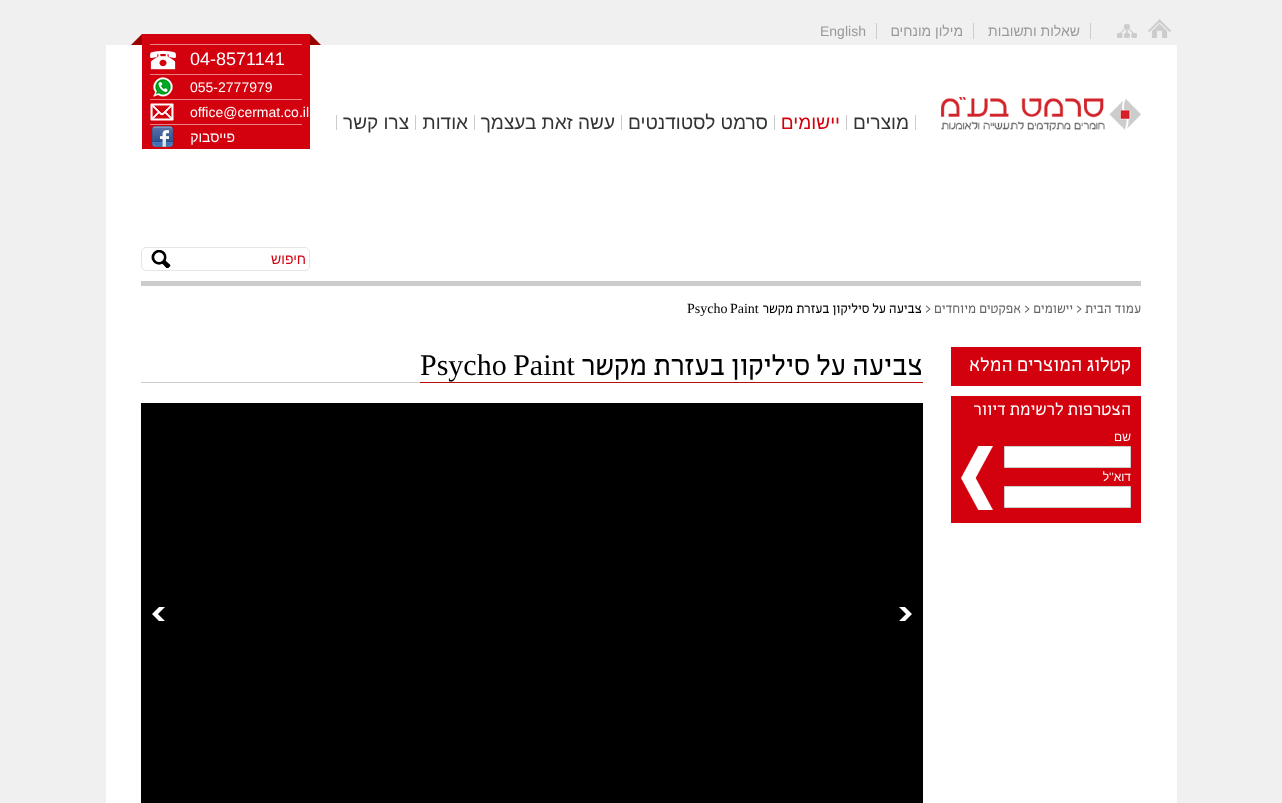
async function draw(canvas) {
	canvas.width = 1282;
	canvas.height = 803;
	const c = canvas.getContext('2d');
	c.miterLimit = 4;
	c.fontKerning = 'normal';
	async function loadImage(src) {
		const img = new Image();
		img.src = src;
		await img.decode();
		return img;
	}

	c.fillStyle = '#f0f0f0';
	c.fillRect(0, 0, 1282, 803);
	c.fillStyle = '#fff';
	c.fillRect(106, 45, 1071, 758);
	c.drawImage(await loadImage('img1.png'), 1148, 19, 23, 19);
	c.drawImage(await loadImage('img2.png'), 1117, 24, 20, 14);
	c.direction = 'rtl';
	c.font = '14px Liberation Sans';
	c.fillStyle = '#999';
	c.fillText('שאלות ותשובות', 1080, 36);
	c.fillStyle = '#ccc';
	c.fillRect(1090, 23, 1, 16);
	c.fillStyle = '#999';
	c.fillText('מילון מונחים', 963, 36);
	c.fillStyle = '#ccc';
	c.fillRect(973, 23, 1, 16);
	c.direction = 'ltr';
	c.fillStyle = '#999';
	c.fillText('English', 820, 36);
	c.fillStyle = '#ccc';
	c.fillRect(876, 23, 1, 16);
	c.drawImage(await loadImage('img3.png'), 941, 97, 200, 34);
	c.fillRect(915, 115, 1, 15);
	c.direction = 'rtl';
	c.font = '19px Liberation Sans';
	c.fillStyle = '#333';
	c.fillText('מוצרים', 909, 129);
	c.fillStyle = '#ccc';
	c.fillRect(846, 115, 1, 15);
	c.fillStyle = '#d3000d';
	c.fillText('יישומים', 840, 129);
	c.fillStyle = '#ccc';
	c.fillRect(774, 115, 1, 15);
	c.fillStyle = '#333';
	c.fillText('סרמט לסטודנטים', 768, 129);
	c.fillStyle = '#ccc';
	c.fillRect(621, 115, 1, 15);
	c.fillStyle = '#333';
	c.fillText('עשה זאת בעצמך', 615, 129);
	c.fillStyle = '#ccc';
	c.fillRect(474, 115, 1, 15);
	c.fillStyle = '#333';
	c.fillText('אודות', 468, 129);
	c.fillStyle = '#ccc';
	c.fillRect(415, 115, 1, 15);
	c.fillStyle = '#333';
	c.fillText('צרו קשר', 409, 129);
	c.fillStyle = '#ccc';
	c.fillRect(336, 115, 1, 15);
	c.drawImage(await loadImage('img4.png'), 131, 34, 190, 115);
	c.drawImage(await loadImage('img5.png'), 150, 50, 26, 20);
	c.fillStyle = '#e98086';
	c.fillRect(150, 44, 152, 1);
	c.direction = 'ltr';
	c.font = '18px Liberation Sans';
	c.fillStyle = '#fff';
	c.fillText('04-8571141', 190, 65);
	c.drawImage(await loadImage('img6.png'), 153, 77, 20, 20);
	c.fillStyle = '#e98086';
	c.fillRect(150, 74, 152, 1);
	c.font = '14px Liberation Sans';
	c.fillStyle = '#fff';
	c.fillText('055-2777979', 190, 92);
	c.drawImage(await loadImage('img7.png'), 150, 103, 24, 18);
	c.fillStyle = '#e98086';
	c.fillRect(150, 99, 152, 1);
	c.fillStyle = '#fff';
	c.fillText('office@cermat.co.il', 190, 117);
	c.drawImage(await loadImage('img8.png'), 152, 126, 21, 21);
	c.fillStyle = '#e98086';
	c.fillRect(150, 124, 152, 1);
	c.direction = 'rtl';
	c.fillStyle = '#fff';
	c.fillText('פייסבוק', 235, 142);
	c.beginPath();
	c.roundRect(141.5, 247.5, 168, 23, 4.5);
	c.strokeStyle = '#e5e5e5';
	c.stroke();
	c.fillStyle = '#d3000d';
	c.fillText('חיפוש', 306, 264);
	c.drawImage(await loadImage('img9.png'), 151, 250, 20, 18);
	c.fillStyle = '#ccc';
	c.fillRect(141, 281, 1000, 5);
	c.font = '14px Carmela';
	c.fillStyle = '#666';
	c.fillText('עמוד הבית', 1141, 313);
	c.direction = 'ltr';
	c.fillText('>', 1076, 313);
	c.direction = 'rtl';
	c.fillText('יישומים', 1073, 313);
	c.direction = 'ltr';
	c.fillText('>', 1024, 313);
	c.direction = 'rtl';
	c.fillText('אפקטים מיוחדים', 1021, 313);
	c.direction = 'ltr';
	c.fillText('>', 925, 313);
	c.direction = 'rtl';
	c.fillStyle = '#000';
	c.fillText('צביעה על סיליקון בעזרת מקשר', 922, 313);
	c.wordSpacing = '-1px';
	c.direction = 'ltr';
	c.font = '14px Liberation Serif';
	c.fillText('Psycho Paint', 687, 313);
	c.fillStyle = '#d3000d';
	c.fillRect(951, 347, 190, 39);
	c.wordSpacing = '0px';
	c.direction = 'rtl';
	c.font = '20px Carmela';
	c.fillStyle = '#fff';
	c.fillText('קטלוג המוצרים המלא', 1131, 371);
	c.fillStyle = '#d3000d';
	c.fillRect(951, 396, 190, 127);
	c.font = '18px Carmela';
	c.fillStyle = '#fff';
	c.fillText('הצטרפות לרשימת דיוור', 1131, 415);
	c.font = '12px Liberation Sans';
	c.fillText('שם', 1131, 441);
	c.beginPath();
	c.rect(1004.5, 446.5, 126, 21);
	c.fill();
	c.strokeStyle = '#ccc';
	c.stroke();
	c.fillText('דוא\'\'ל', 1131, 481);
	c.beginPath();
	c.rect(1004.5, 486.5, 126, 21);
	c.fill();
	c.stroke();
	c.drawImage(await loadImage('img10.png'), 961, 446, 32, 64);
	c.fillStyle = '#ccc';
	c.fillRect(141, 382, 279, 1);
	c.fillStyle = '#b70f0f';
	c.fillRect(420, 382, 503, 1);
	c.font = '30px Carmela';
	c.fillStyle = '#000';
	c.fillText('צביעה על סיליקון בעזרת מקשר', 923, 375);
	c.wordSpacing = '-1px';
	c.direction = 'ltr';
	c.font = '30px Liberation Serif';
	c.fillText('Psycho Paint', 420, 375);
	c.fillRect(141, 403, 782, 400);
	c.drawImage(await loadImage('img11.png'), 899, 607, 13, 14);
	c.drawImage(await loadImage('img12.png'), 152, 607, 13, 14);
}

draw(document.querySelector('canvas'));
